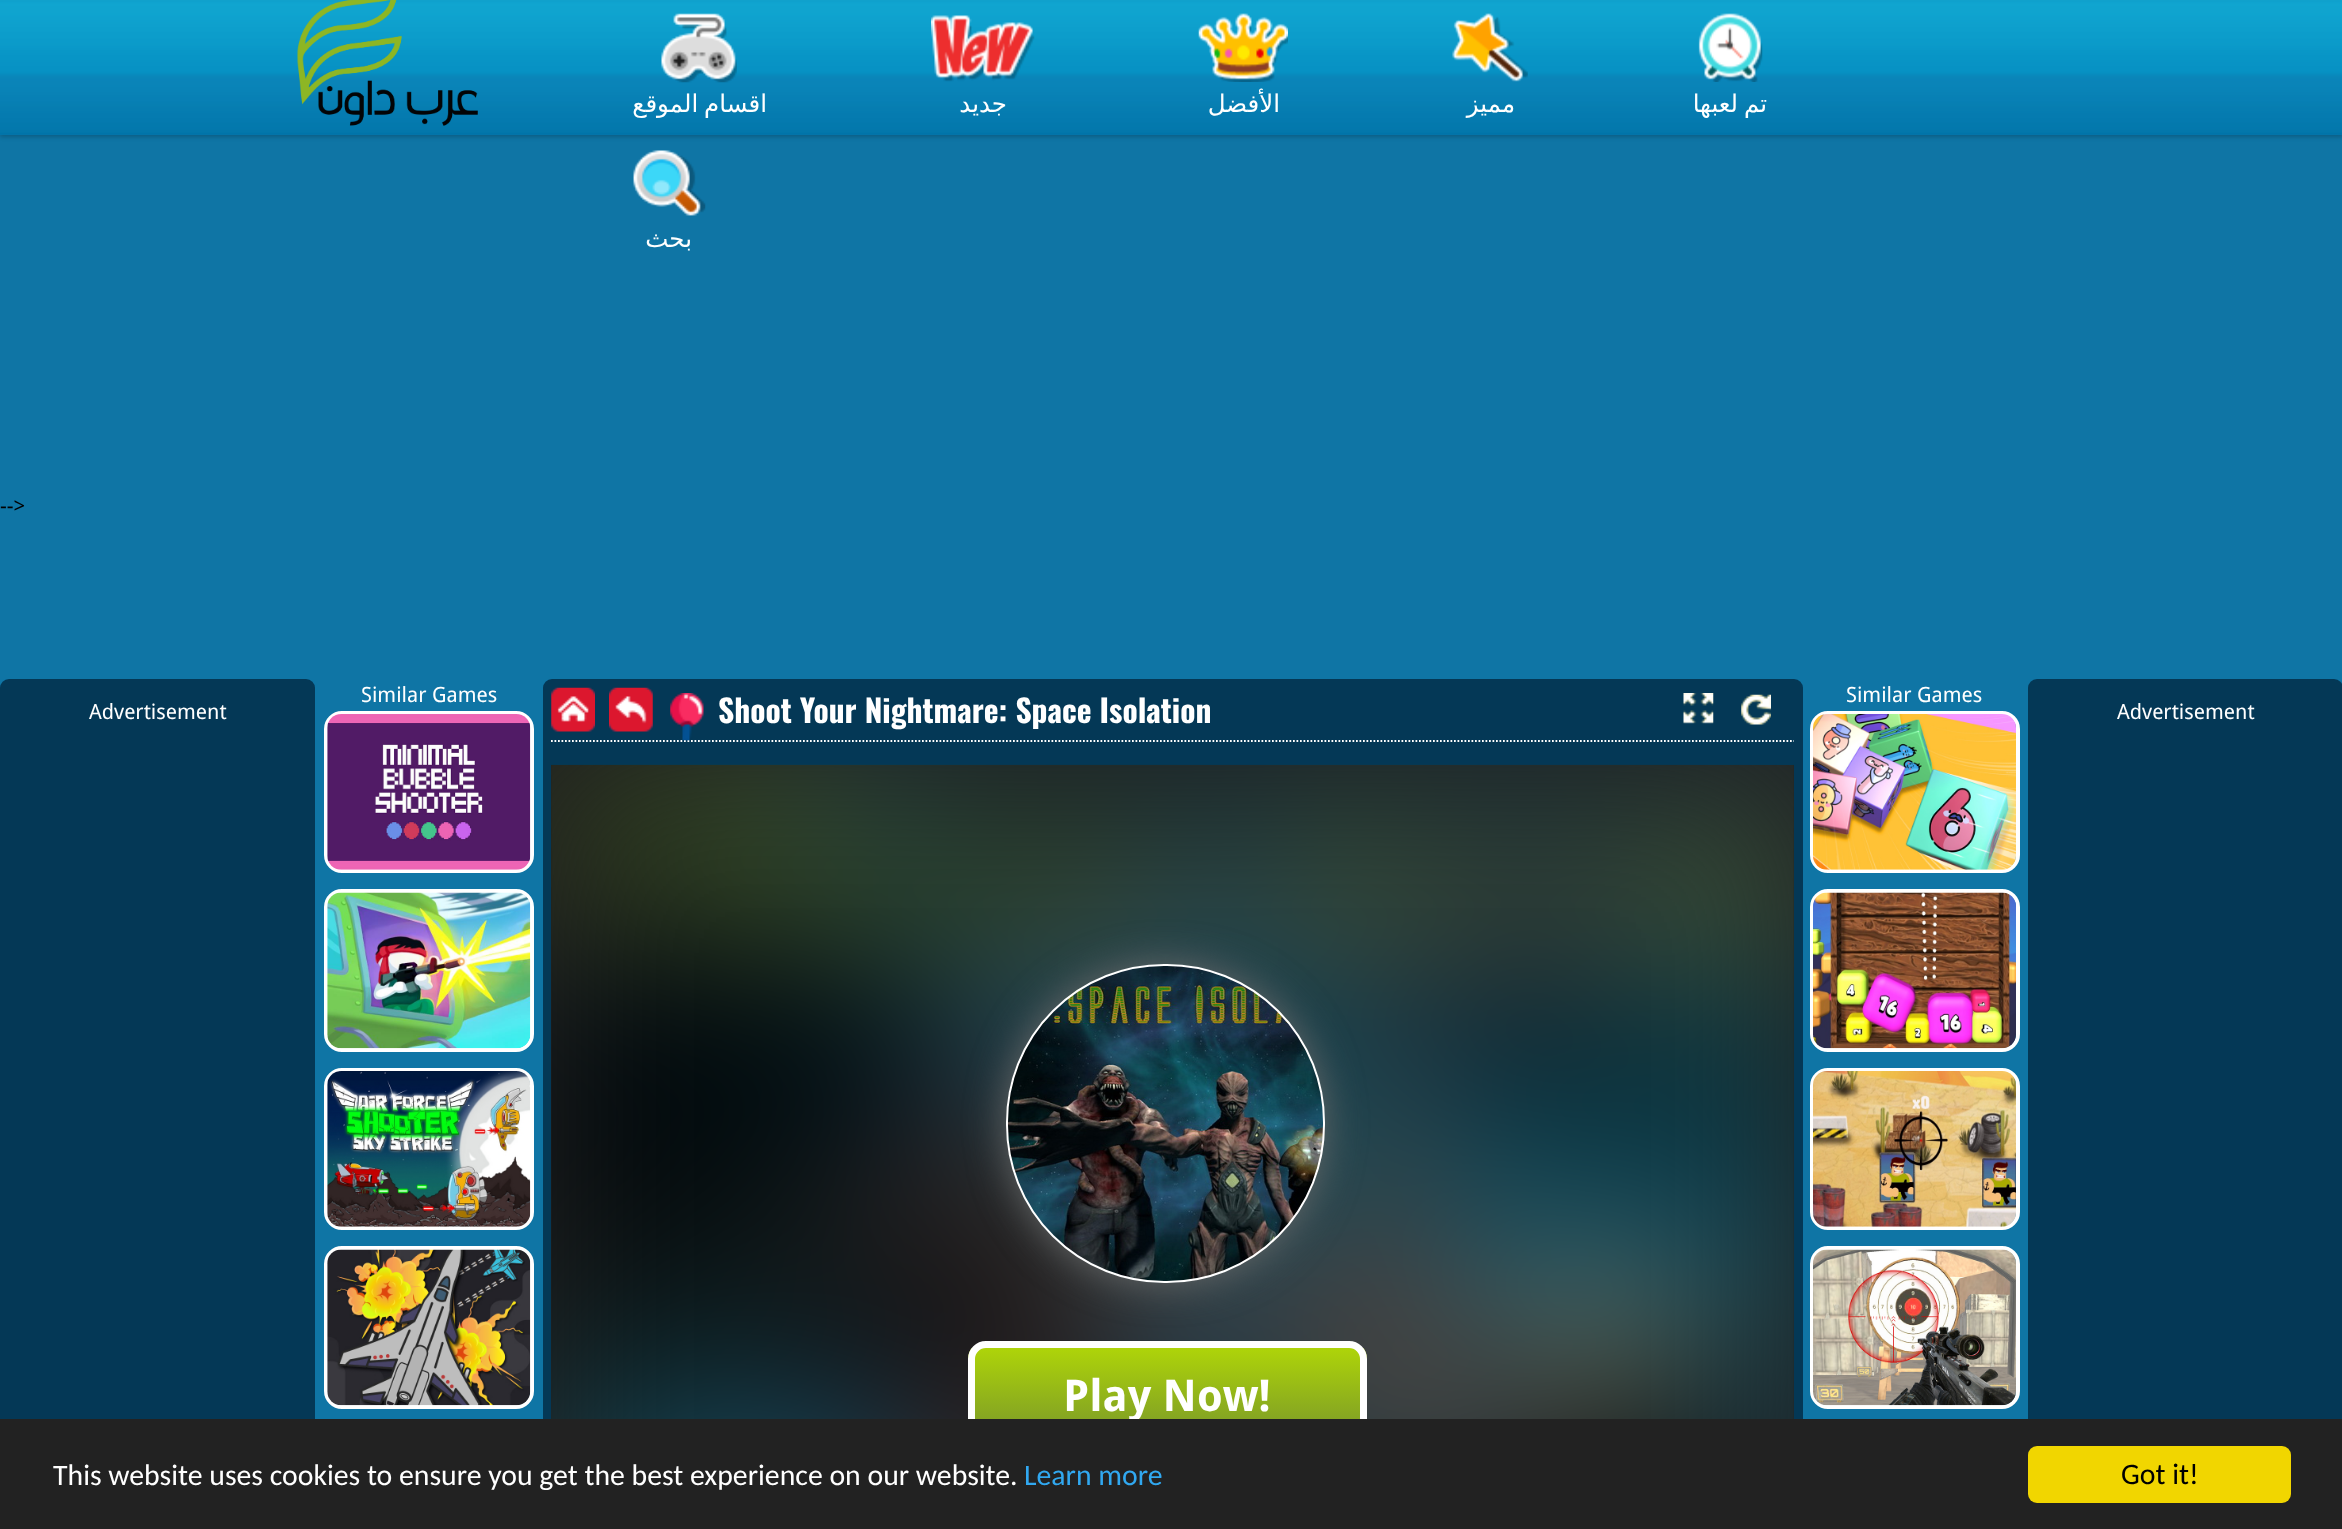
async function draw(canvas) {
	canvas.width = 2342;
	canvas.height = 1529;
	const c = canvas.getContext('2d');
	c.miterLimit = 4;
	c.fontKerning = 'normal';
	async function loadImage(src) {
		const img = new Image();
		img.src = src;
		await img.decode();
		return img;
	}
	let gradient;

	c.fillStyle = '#0f75a5';
	c.fillRect(0, 0, 2342, 1529);
	c.save();
	c.beginPath();
	c.moveTo(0, 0);
	c.lineTo(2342, 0);
	c.lineTo(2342, 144);
	c.lineTo(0, 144);
	c.closePath();
	c.moveTo(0, 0);
	c.lineTo(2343, 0);
	c.lineTo(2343, 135);
	c.lineTo(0, 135);
	c.closePath();
	c.clip('evenodd');
	c.fillStyle = '#00000033';
	c.filter = 'blur(2px)';
	c.beginPath();
	c.rect(0, 2, 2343, 135);
	c.fill();
	c.filter = 'none';
	c.restore();
	c.drawImage(await loadImage('img1.png'), 0, 0, 2342, 135);
	c.drawImage(await loadImage('img2.png'), 297, 0, 181, 126);
	c.drawImage(await loadImage('img3.png'), 661, 13, 76, 70);
	c.wordSpacing = '-2px';
	c.direction = 'rtl';
	c.font = '24.5px DejaVu Sans';
	c.fillStyle = '#fff';
	c.fillText('اقسام الموقع', 767, 112);
	c.drawImage(await loadImage('img4.png'), 931, 15, 104, 67);
	c.wordSpacing = '0px';
	c.fillText('جديد', 1007, 112);
	c.drawImage(await loadImage('img5.png'), 1198, 13, 90, 69);
	c.fillText('الأفضل', 1280, 112);
	c.drawImage(await loadImage('img6.png'), 1452, 13, 76, 69);
	c.fillText('مميز', 1515, 112);
	c.drawImage(await loadImage('img7.png'), 1698, 13, 65, 69);
	c.wordSpacing = '-2px';
	c.fillText('تم لعبها', 1767, 112);
	c.drawImage(await loadImage('img8.png'), 633, 150, 73, 66);
	c.wordSpacing = '0px';
	c.fillText('بحث', 692, 247);
	c.direction = 'ltr';
	c.font = '21px Droid Sans';
	c.fillStyle = '#000';
	c.fillText('-->', 0, 513);
	c.fillStyle = '#fff';
	c.fillText('Similar Games', 361, 702);
	c.beginPath();
	c.roundRect(326, 713, 206, 158, 16);
	c.strokeStyle = '#fff';
	c.lineWidth = 4;
	c.stroke();
	c.drawImage(await loadImage('img9.png'), 327, 714, 204, 156);
	c.beginPath();
	c.roundRect(326, 891, 206, 159, 16);
	c.stroke();
	c.drawImage(await loadImage('img10.png'), 327, 892, 204, 157);
	c.beginPath();
	c.roundRect(326, 1070, 206, 158, 16);
	c.stroke();
	c.drawImage(await loadImage('img11.png'), 327, 1071, 204, 156);
	c.beginPath();
	c.roundRect(326, 1248, 206, 159, 16);
	c.stroke();
	c.drawImage(await loadImage('img12.png'), 327, 1249, 204, 157);
	c.fillStyle = '#043856';
	c.beginPath();
	c.roundRect(0, 679, 315, 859, 9);
	c.fill();
	c.fillStyle = '#fff';
	c.fillText('Advertisement', 89, 719);
	c.fillStyle = '#043856';
	c.beginPath();
	c.roundRect(543, 679, 1260, 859, 9);
	c.fill();
	c.beginPath();
	c.moveTo(551, 741);
	c.lineTo(1794, 741);
	c.lineWidth = 1.8;
	c.setLineDash([1.75, 1.75]);
	c.stroke();
	c.drawImage(await loadImage('img13.png'), 551, 687, 44, 45);
	c.drawImage(await loadImage('img14.png'), 609, 687, 44, 45);
	c.drawImage(await loadImage('img15.png'), 670, 693, 34, 48);
	c.font = 'bold 31.5px Oswald';
	c.fillStyle = '#fff';
	c.fillText('Shoot Your Nightmare: Space Isolation', 718, 723);
	c.drawImage(await loadImage('img16.png'), 1683, 693, 31, 31);
	c.drawImage(await loadImage('img17.png'), 1741, 694, 30, 31);
	c.fillStyle = '#222';
	c.fillRect(551, 765, 1243, 654);
	c.drawImage(await loadImage('img18.png'), 551, 764, 1243, 655);
	c.fillStyle = '#666';
	c.filter = 'blur(19px)';
	c.beginPath();
	c.roundRect(1006, 964, 319, 319, 158);
	c.fill();
	c.filter = 'none';
	c.drawImage(await loadImage('img19.png'), 1006, 964, 319, 319);
	c.beginPath();
	c.roundRect(1007, 965, 317, 317, 157);
	c.lineWidth = 2;
	c.setLineDash([]);
	c.stroke();
	c.save();
	c.beginPath();
	c.roundRect(968, 1341, 399, 110, 18);
	c.clip();
	gradient = c.createLinearGradient(1167, 1348, 1167, 1444);
	gradient.addColorStop(0, '#aed409');
	gradient.addColorStop(1, '#77952b');
	c.fillStyle = gradient;
	c.fillRect(968, 1348, 399, 71);
	c.restore();
	c.beginPath();
	c.roundRect(971.5, 1344.5, 392, 103, 14.5);
	c.lineWidth = 7;
	c.stroke();
	c.font = 'bold 43.75px Droid Sans';
	c.fillStyle = '#fff';
	c.fillText('Play Now!', 1063, 1411);
	c.font = '21px Droid Sans';
	c.fillText('Similar Games', 1846, 702);
	c.beginPath();
	c.roundRect(1812, 713, 206, 158, 16);
	c.lineWidth = 4;
	c.stroke();
	c.drawImage(await loadImage('img20.png'), 1813, 714, 203, 156);
	c.beginPath();
	c.roundRect(1812, 891, 206, 159, 16);
	c.stroke();
	c.drawImage(await loadImage('img21.png'), 1813, 892, 203, 157);
	c.beginPath();
	c.roundRect(1812, 1070, 206, 158, 16);
	c.stroke();
	c.drawImage(await loadImage('img22.png'), 1813, 1071, 203, 156);
	c.beginPath();
	c.roundRect(1812, 1248, 206, 159, 16);
	c.stroke();
	c.drawImage(await loadImage('img23.png'), 1813, 1249, 203, 157);
	c.fillStyle = '#043856';
	c.beginPath();
	c.roundRect(2028, 679, 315, 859, 9);
	c.fill();
	c.fillStyle = '#fff';
	c.fillText('Advertisement', 2117, 719);
	c.fillStyle = '#222';
	c.fillRect(0, 1419, 2342, 110);
	c.font = '29.75px Carlito';
	c.fillStyle = '#fff';
	c.fillText('This website uses cookies to ensure you get the best experience on our website.', 53, 1485);
	c.fillStyle = '#31a8f0';
	c.fillText('Learn more', 1024, 1485);
	c.fillStyle = '#f1d600';
	c.beginPath();
	c.roundRect(2028, 1446, 263, 57, 9);
	c.fill();
	c.fillStyle = '#000';
	c.fillText('Got it!', 2121, 1484);
}

draw(document.querySelector('canvas'));
